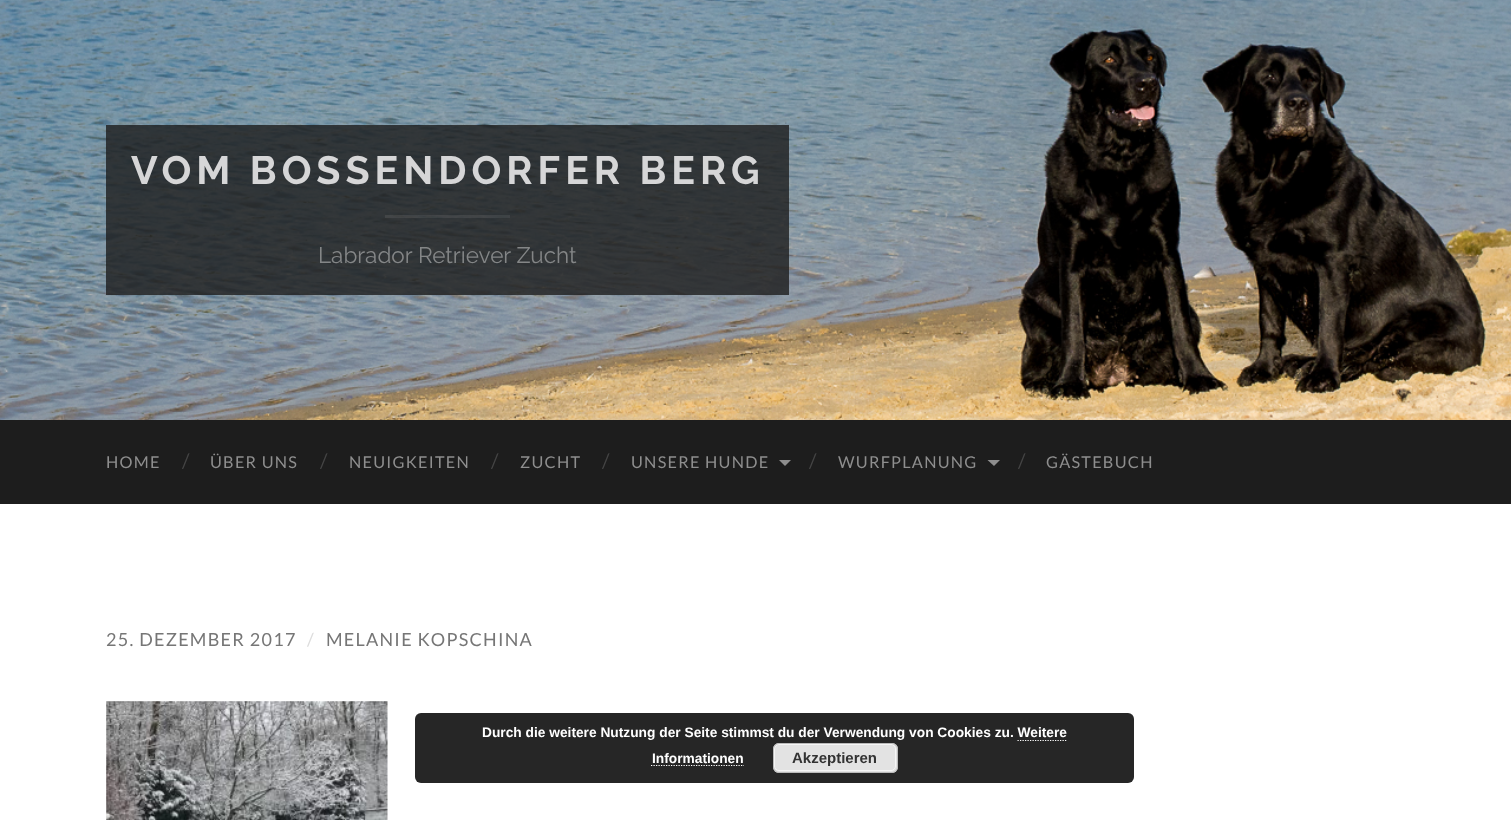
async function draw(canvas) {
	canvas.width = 1511;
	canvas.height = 820;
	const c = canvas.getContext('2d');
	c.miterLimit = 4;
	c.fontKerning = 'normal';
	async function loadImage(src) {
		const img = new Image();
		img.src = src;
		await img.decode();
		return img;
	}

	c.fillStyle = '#fff';
	c.fillRect(0, 0, 1511, 820);
	c.drawImage(await loadImage('img1.png'), 0, 0, 1511, 420);
	c.fillStyle = '#1d1d1dcc';
	c.fillRect(106, 125, 683, 170);
	c.letterSpacing = '5px';
	c.font = '100 39.4px Raleway';
	c.fillStyle = '#d6d6d7';
	c.fillText('VOM BOSSENDORFER BERG', 131, 184);
	c.fillStyle = '#ffffff14';
	c.fillRect(385, 215, 125, 3);
	c.letterSpacing = '0px';
	c.font = '100 22.5px "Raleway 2"';
	c.fillStyle = '#848687';
	c.fillText('Labrador Retriever Zucht', 318, 263);
	c.fillStyle = '#1d1d1d';
	c.fillRect(0, 420, 1511, 84);
	c.letterSpacing = '1.25px';
	c.font = '16.25px Lato';
	c.fillStyle = '#8e8e8e';
	c.fillText('HOME', 106, 468);
	c.letterSpacing = '0px';
	c.font = '20px Lato';
	c.fillStyle = '#444';
	c.fillText('/', 182, 468);
	c.letterSpacing = '1.25px';
	c.font = '16.25px Lato';
	c.fillStyle = '#8e8e8e';
	c.fillText('ÜBER UNS', 210, 468);
	c.letterSpacing = '0px';
	c.font = '20px Lato';
	c.fillStyle = '#444';
	c.fillText('/', 320, 468);
	c.letterSpacing = '1.25px';
	c.font = '16.25px Lato';
	c.fillStyle = '#8e8e8e';
	c.fillText('NEUIGKEITEN', 349, 468);
	c.letterSpacing = '0px';
	c.font = '20px Lato';
	c.fillStyle = '#444';
	c.fillText('/', 491, 468);
	c.letterSpacing = '1.25px';
	c.font = '16.25px Lato';
	c.fillStyle = '#8e8e8e';
	c.fillText('ZUCHT', 520, 468);
	c.letterSpacing = '0px';
	c.font = '20px Lato';
	c.fillStyle = '#444';
	c.fillText('/', 602, 468);
	c.letterSpacing = '1.25px';
	c.font = '16.25px Lato';
	c.fillStyle = '#8e8e8e';
	c.fillText('UNSERE HUNDE', 631, 468);
	c.beginPath();
	c.moveTo(779, 460);
	c.lineTo(791, 460);
	c.lineTo(785, 466);
	c.closePath();
	c.fill();
	c.letterSpacing = '0px';
	c.font = '20px Lato';
	c.fillStyle = '#444';
	c.fillText('/', 809, 468);
	c.letterSpacing = '1.25px';
	c.font = '16.25px Lato';
	c.fillStyle = '#8e8e8e';
	c.fillText('WURFPLANUNG', 838, 468);
	c.beginPath();
	c.moveTo(987.5, 460);
	c.lineTo(1000, 460);
	c.lineTo(994, 466);
	c.closePath();
	c.fill();
	c.letterSpacing = '0px';
	c.font = '20px Lato';
	c.fillStyle = '#444';
	c.fillText('/', 1018, 468);
	c.letterSpacing = '1.25px';
	c.font = '16.25px Lato';
	c.fillStyle = '#8e8e8e';
	c.fillText('GÄSTEBUCH', 1046, 468);
	c.font = '18px Lato';
	c.fillStyle = '#767676';
	c.fillText('25. DEZEMBER 2017', 106, 646);
	c.fillStyle = '#ddd';
	c.fillText('/', 307, 646);
	c.fillStyle = '#767676';
	c.fillText('MELANIE KOPSCHINA', 326, 646);
	c.drawImage(await loadImage('img2.png'), 106, 701, 282, 119);
	c.fillStyle = '#262626';
	c.beginPath();
	c.roundRect(415, 713, 719, 70, 6);
	c.fill();
	c.letterSpacing = '0px';
	c.font = 'bold 13.75px Liberation Sans';
	c.fillStyle = '#fff';
	c.fillText('Durch die weitere Nutzung der Seite stimmst du der Verwendung von Cookies zu. Weitere', 482, 737);
	c.fillText('Informationen', 652, 763);
	c.beginPath();
	c.moveTo(1017.5, 740.5);
	c.lineTo(1067.5, 740.5);
	c.strokeStyle = '#fff';
	c.lineWidth = 1.2;
	c.setLineDash([1.25, 1.25]);
	c.stroke();
	c.beginPath();
	c.moveTo(651, 765.5);
	c.lineTo(744, 765.5);
	c.stroke();
	c.fillStyle = '#e3e3e3';
	c.beginPath();
	c.roundRect(773, 743, 125, 30, 6);
	c.fill();
	c.beginPath();
	c.roundRect(774.5, 744.5, 121, 26, 4.5);
	c.strokeStyle = '#f6f6f6';
	c.lineWidth = 1;
	c.setLineDash([]);
	c.stroke();
	c.beginPath();
	c.roundRect(773.5, 743.5, 124, 29, 5.5);
	c.strokeStyle = '#bbb';
	c.stroke();
	c.font = 'bold 15px Liberation Sans';
	c.fillStyle = '#333';
	c.fillText('Akzeptieren', 792, 763);
}

draw(document.querySelector('canvas'));
